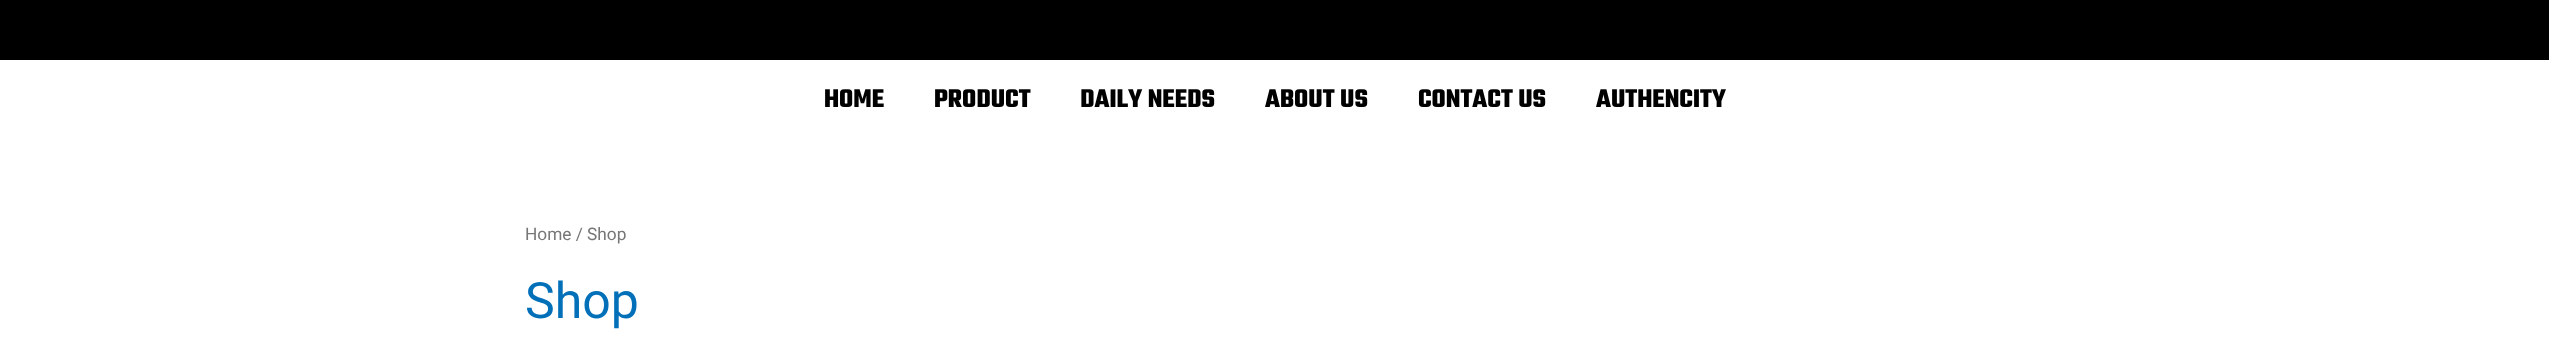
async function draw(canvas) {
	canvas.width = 2549;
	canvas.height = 344;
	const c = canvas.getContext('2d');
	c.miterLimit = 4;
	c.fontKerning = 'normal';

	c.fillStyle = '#fff';
	c.fillRect(0, 0, 2549, 344);
	c.fillStyle = '#000';
	c.fillRect(0, 0, 2549, 60);
	c.font = 'bold 27.5px Teko';
	for (const [text, x, y] of [
		['HOME', 824, 107],
		['PRODUCT', 934, 107],
		['DAILY NEEDS', 1080, 107],
		['ABOUT US', 1265, 107],
		['CONTACT US', 1418, 107],
		['AUTHENCITY', 1596, 107],
	]) {
		c.fillText(text, x, y);
	}
	c.font = '17.25px Roboto';
	c.fillStyle = '#777';
	c.fillText('Home / Shop', 525, 240);
	c.font = '50px Roboto';
	c.fillStyle = '#0170b9';
	c.fillText('Shop', 525, 318);
}

draw(document.querySelector('canvas'));
